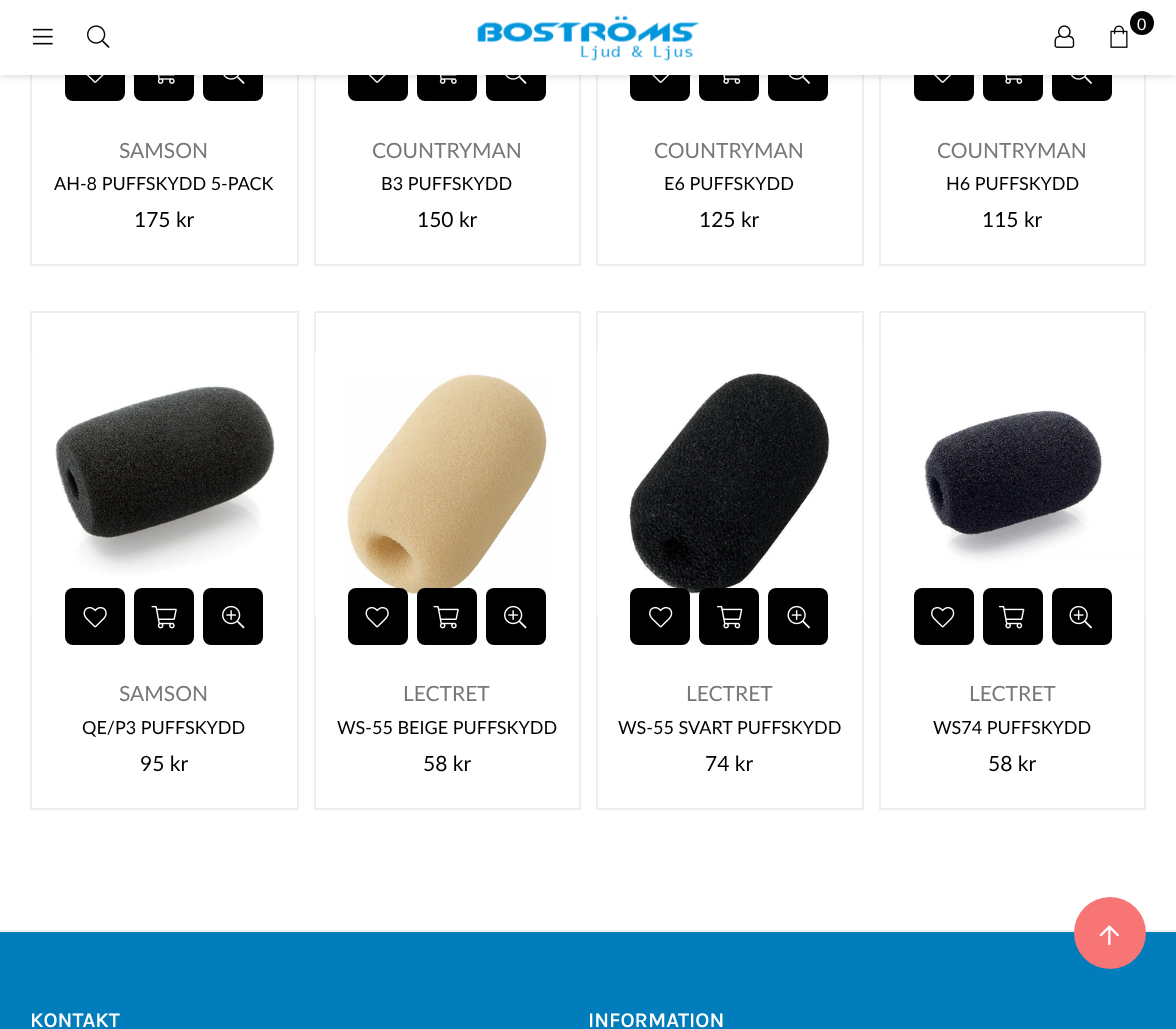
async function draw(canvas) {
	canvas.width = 1176;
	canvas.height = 1029;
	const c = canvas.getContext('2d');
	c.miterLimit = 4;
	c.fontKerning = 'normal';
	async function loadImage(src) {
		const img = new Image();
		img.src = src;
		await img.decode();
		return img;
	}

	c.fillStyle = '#fff';
	c.fillRect(0, 0, 1176, 1029);
	c.strokeStyle = '#eee';
	c.lineWidth = 2;
	c.strokeRect(31, -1, 267, 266);
	c.fillStyle = '#000';
	c.beginPath();
	c.roundRect(65, 44, 60, 57, 8);
	c.fill();
	c.drawImage(await loadImage('img6.png'), 86, 75, 18, 8);
	c.beginPath();
	c.roundRect(134, 44, 60, 57, 8);
	c.fill();
	c.drawImage(await loadImage('img7.png'), 157, 75, 18, 9);
	c.beginPath();
	c.roundRect(203, 44, 60, 57, 8);
	c.fill();
	c.drawImage(await loadImage('img8.png'), 223, 75, 22, 9);
	c.strokeRect(315, -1, 265, 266);
	c.beginPath();
	c.roundRect(348, 44, 60, 57, 8);
	c.fill();
	c.drawImage(await loadImage('img6.png'), 368, 75, 18, 8);
	c.beginPath();
	c.roundRect(417, 44, 60, 57, 8);
	c.fill();
	c.drawImage(await loadImage('img7.png'), 439, 75, 18, 9);
	c.beginPath();
	c.roundRect(486, 44, 60, 57, 8);
	c.fill();
	c.drawImage(await loadImage('img8.png'), 505, 75, 22, 9);
	c.strokeRect(597, -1, 266, 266);
	c.beginPath();
	c.roundRect(630, 44, 60, 57, 8);
	c.fill();
	c.drawImage(await loadImage('img9.png'), 652, 75, 18, 8);
	c.beginPath();
	c.roundRect(699, 44, 60, 57, 8);
	c.fill();
	c.drawImage(await loadImage('img10.png'), 723, 75, 18, 9);
	c.beginPath();
	c.roundRect(768, 44, 60, 57, 8);
	c.fill();
	c.drawImage(await loadImage('img11.png'), 788, 75, 22, 9);
	c.strokeRect(880, -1, 265, 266);
	c.beginPath();
	c.roundRect(914, 44, 60, 57, 8);
	c.fill();
	c.drawImage(await loadImage('img9.png'), 934, 75, 18, 8);
	c.beginPath();
	c.roundRect(983, 44, 60, 57, 8);
	c.fill();
	c.drawImage(await loadImage('img10.png'), 1005, 75, 18, 9);
	c.beginPath();
	c.roundRect(1052, 44, 60, 57, 8);
	c.fill();
	c.drawImage(await loadImage('img11.png'), 1070, 75, 22, 9);
	c.fillStyle = '#00000033';
	c.filter = 'blur(5px)';
	c.beginPath();
	c.rect(0, 0, 1176, 75);
	c.fill();
	c.filter = 'none';
	c.fillStyle = '#fff';
	c.fillRect(0, 0, 1176, 75);
	c.drawImage(await loadImage('img1.png'), 33, 28, 20, 17);
	c.drawImage(await loadImage('img2.png'), 87, 25, 23, 23);
	c.drawImage(await loadImage('img3.png'), 477, 15, 223, 46);
	c.drawImage(await loadImage('img4.png'), 1054, 25, 21, 23);
	c.drawImage(await loadImage('img5.png'), 1110, 25, 18, 23);
	c.fillStyle = '#030505';
	c.beginPath();
	c.arc(1142, 23, 12, 0, 2 * Math.PI);
	c.fill();
	c.font = '16px Lato';
	c.fillStyle = '#fff';
	c.fillText('0', 1137, 30);
	c.font = '21px Lato';
	c.fillStyle = '#777';
	c.fillText('SAMSON', 119, 158);
	c.font = '18px Lato';
	c.fillStyle = '#000';
	c.fillText('AH-8 PUFFSKYDD 5-PACK', 54, 190);
	c.font = '21px Lato';
	c.fillText('175 kr', 134, 227);
	c.fillStyle = '#777';
	c.fillText('COUNTRYMAN', 372, 158);
	c.font = '18px Lato';
	c.fillStyle = '#000';
	c.fillText('B3 PUFFSKYDD', 381, 190);
	c.font = '21px Lato';
	c.fillText('150 kr', 417, 227);
	c.fillStyle = '#777';
	c.fillText('COUNTRYMAN', 654, 158);
	c.font = '18px Lato';
	c.fillStyle = '#000';
	c.fillText('E6 PUFFSKYDD', 664, 190);
	c.font = '21px Lato';
	c.fillText('125 kr', 699, 227);
	c.fillStyle = '#777';
	c.fillText('COUNTRYMAN', 937, 158);
	c.font = '18px Lato';
	c.fillStyle = '#000';
	c.fillText('H6 PUFFSKYDD', 946, 190);
	c.font = '21px Lato';
	c.fillText('115 kr', 982, 227);
	c.strokeRect(31, 312, 267, 497);
	c.drawImage(await loadImage('img12.png'), 31, 351, 244, 265);
	c.beginPath();
	c.roundRect(65, 588, 60, 57, 8);
	c.fill();
	c.drawImage(await loadImage('img13.png'), 83, 607, 24, 21);
	c.beginPath();
	c.roundRect(134, 588, 60, 57, 8);
	c.fill();
	c.drawImage(await loadImage('img14.png'), 151, 605, 26, 24);
	c.beginPath();
	c.roundRect(203, 588, 60, 57, 8);
	c.fill();
	c.drawImage(await loadImage('img15.png'), 222, 605, 23, 24);
	c.fillStyle = '#777';
	c.fillText('SAMSON', 119, 701);
	c.font = '18px Lato';
	c.fillStyle = '#000';
	c.fillText('QE/P3 PUFFSKYDD', 82, 734);
	c.font = '21px Lato';
	c.fillText('95 kr', 140, 771);
	c.strokeRect(315, 312, 265, 497);
	c.drawImage(await loadImage('img16.png'), 315, 352, 235, 264);
	c.beginPath();
	c.roundRect(348, 588, 60, 57, 8);
	c.fill();
	c.drawImage(await loadImage('img13.png'), 365, 607, 24, 21);
	c.beginPath();
	c.roundRect(417, 588, 60, 57, 8);
	c.fill();
	c.drawImage(await loadImage('img14.png'), 433, 605, 26, 24);
	c.beginPath();
	c.roundRect(486, 588, 60, 57, 8);
	c.fill();
	c.drawImage(await loadImage('img15.png'), 504, 605, 23, 24);
	c.fillStyle = '#777';
	c.fillText('LECTRET', 403, 701);
	c.font = '18px Lato';
	c.fillStyle = '#000';
	c.fillText('WS-55 BEIGE PUFFSKYDD', 337, 734);
	c.font = '21px Lato';
	c.fillText('58 kr', 423, 771);
	c.strokeRect(597, 312, 266, 497);
	c.drawImage(await loadImage('img17.png'), 597, 350, 266, 266);
	c.beginPath();
	c.roundRect(630, 588, 60, 57, 8);
	c.fill();
	c.drawImage(await loadImage('img18.png'), 649, 607, 24, 21);
	c.beginPath();
	c.roundRect(699, 588, 60, 57, 8);
	c.fill();
	c.drawImage(await loadImage('img19.png'), 717, 605, 26, 24);
	c.beginPath();
	c.roundRect(768, 588, 60, 57, 8);
	c.fill();
	c.drawImage(await loadImage('img20.png'), 787, 605, 23, 24);
	c.fillStyle = '#777';
	c.fillText('LECTRET', 686, 701);
	c.font = '18px Lato';
	c.fillStyle = '#000';
	c.fillText('WS-55 SVART PUFFSKYDD', 618, 734);
	c.font = '21px Lato';
	c.fillText('74 kr', 705, 771);
	c.strokeRect(880, 312, 265, 497);
	c.drawImage(await loadImage('img21.png'), 880, 352, 265, 264);
	c.beginPath();
	c.roundRect(914, 588, 60, 57, 8);
	c.fill();
	c.drawImage(await loadImage('img18.png'), 931, 607, 24, 21);
	c.beginPath();
	c.roundRect(983, 588, 60, 57, 8);
	c.fill();
	c.drawImage(await loadImage('img19.png'), 999, 605, 26, 24);
	c.beginPath();
	c.roundRect(1052, 588, 60, 57, 8);
	c.fill();
	c.drawImage(await loadImage('img20.png'), 1069, 605, 23, 24);
	c.fillStyle = '#777';
	c.fillText('LECTRET', 969, 701);
	c.font = '18px Lato';
	c.fillStyle = '#000';
	c.fillText('WS74 PUFFSKYDD', 933, 734);
	c.font = '21px Lato';
	c.fillText('58 kr', 988, 771);
	c.fillStyle = '#007dba';
	c.fillRect(0, 932, 1176, 97);
	c.fillStyle = '#eee';
	c.fillRect(0, 930, 1176, 2);
	c.fillStyle = '#f77575';
	c.beginPath();
	c.arc(1110, 933, 36, 0, 2 * Math.PI);
	c.fill();
	c.drawImage(await loadImage('img22.png'), 1099, 925, 20, 20);
	c.font = '600 21px Karla';
	c.fillStyle = '#fff';
	c.fillText('KONTAKT', 30, 1027);
	c.fillText('INFORMATION', 588, 1027);
}

draw(document.querySelector('canvas'));
